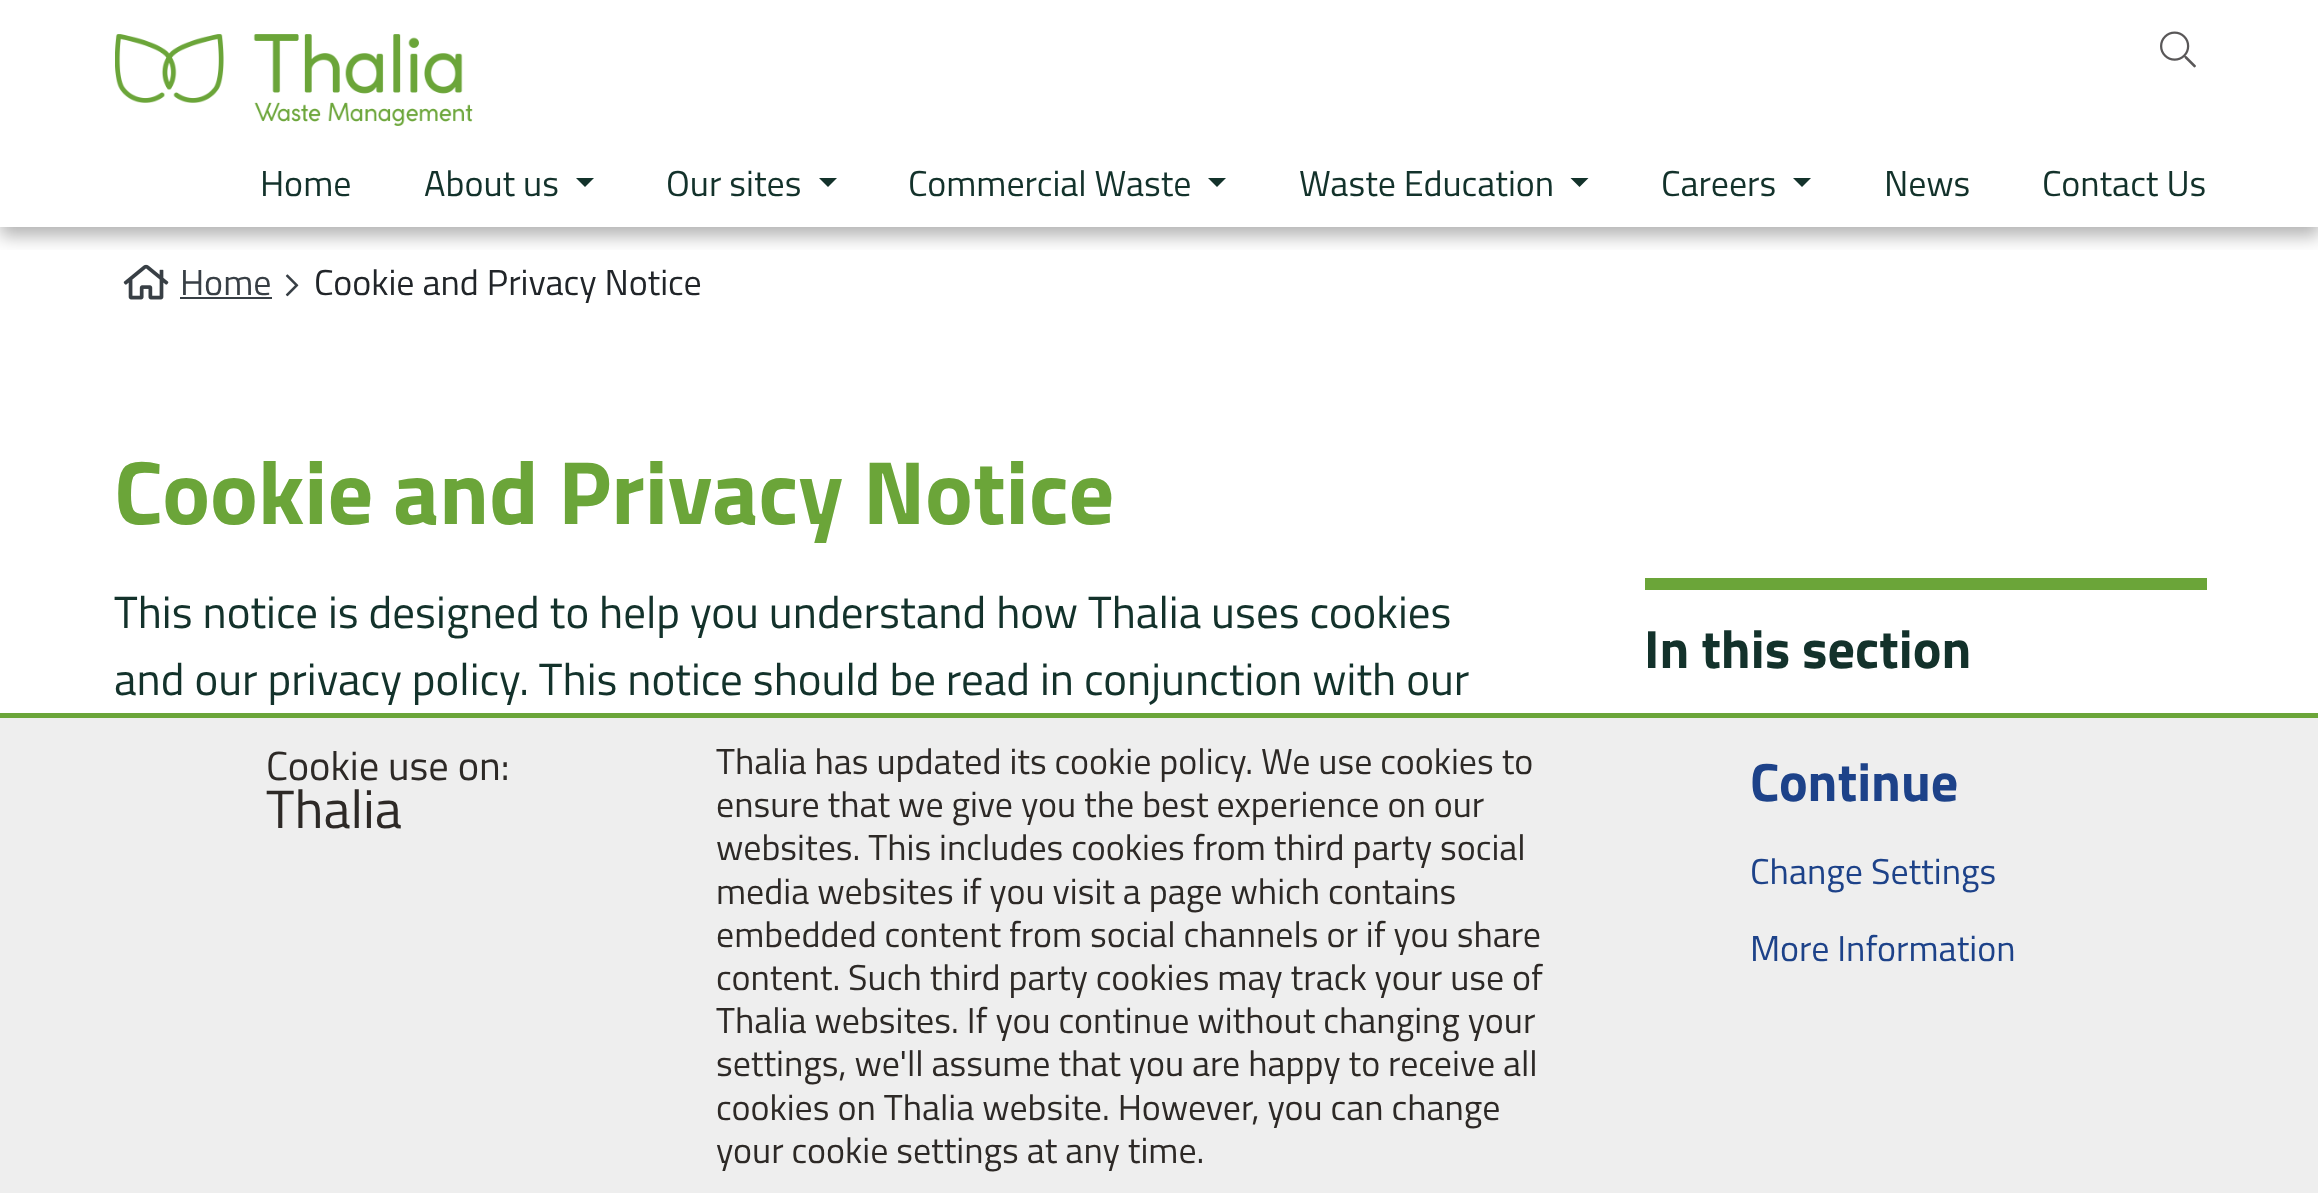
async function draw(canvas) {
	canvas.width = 2318;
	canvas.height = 1193;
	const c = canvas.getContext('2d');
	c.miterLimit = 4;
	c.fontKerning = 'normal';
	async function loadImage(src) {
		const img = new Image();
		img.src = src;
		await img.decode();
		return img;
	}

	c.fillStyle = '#fff';
	c.fillRect(0, 0, 2318, 1193);
	c.save();
	c.beginPath();
	c.rect(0, 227, 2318, 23);
	c.clip();
	c.fillStyle = '#0000004d';
	c.filter = 'blur(9px)';
	c.beginPath();
	c.rect(0, 9, 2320, 227);
	c.fill();
	c.filter = 'none';
	c.restore();
	c.drawImage(await loadImage('img1.png'), 115, 34, 358, 92);
	c.drawImage(await loadImage('img2.png'), 2160, 31, 36, 37);
	c.font = '36px Titillium Web';
	c.fillStyle = '#13322b';
	c.fillText('Home', 260, 196);
	c.fillText('About us', 424, 196);
	c.beginPath();
	c.moveTo(576, 178);
	c.lineTo(594, 178);
	c.lineTo(585, 187);
	c.closePath();
	c.fill();
	c.fillText('Our sites', 666, 196);
	c.beginPath();
	c.moveTo(819, 178);
	c.lineTo(837, 178);
	c.lineTo(828, 187);
	c.closePath();
	c.fill();
	c.fillText('Commercial Waste', 908, 196);
	c.beginPath();
	c.moveTo(1208, 178);
	c.lineTo(1226, 178);
	c.lineTo(1217, 187);
	c.closePath();
	c.fill();
	c.fillText('Waste Education', 1299, 196);
	c.beginPath();
	c.moveTo(1570.5, 178);
	c.lineTo(1588.5, 178);
	c.lineTo(1579.5, 187);
	c.closePath();
	c.fill();
	c.fillText('Careers', 1661, 196);
	c.beginPath();
	c.moveTo(1793, 178);
	c.lineTo(1811, 178);
	c.lineTo(1802, 187);
	c.closePath();
	c.fill();
	c.fillText('News', 1884, 196);
	c.fillText('Contact Us', 2042, 196);
	c.drawImage(await loadImage('img3.png'), 123, 264, 46, 36);
	c.fillStyle = '#383f45';
	c.fillText('Home', 180, 295);
	c.fillRect(180, 297, 92, 2);
	c.drawImage(await loadImage('img4.png'), 285, 274, 14, 23);
	c.fillStyle = '#212529';
	c.fillText('Cookie and Privacy Notice', 314, 295);
	c.font = 'bold 90px Titillium Web';
	c.fillStyle = '#6ba539';
	c.fillText('Cookie and Privacy Notice', 114, 524);
	c.font = '45px Titillium Web';
	c.fillStyle = '#13322b';
	c.fillText('This notice is designed to help you understand how Thalia uses cookies', 114, 628);
	c.fillText('and our privacy policy. This notice should be read in conjunction with our', 114, 695);
	c.fillStyle = '#6ba539';
	c.fillRect(1645, 578, 562, 12);
	c.font = 'bold 54px Titillium Web';
	c.fillStyle = '#13322b';
	c.fillText('In this section', 1644, 668);
	c.fillStyle = '#eee';
	c.fillRect(0, 718, 2318, 475);
	c.fillStyle = '#6ba539';
	c.fillRect(0, 713, 2318, 5);
	c.font = '40.5px Titillium Web';
	c.fillStyle = '#2d2926';
	c.fillText('Cookie use on:', 266, 780);
	c.font = '54px Titillium Web';
	c.fillText('Thalia', 266, 828);
	c.font = '36px Titillium Web';
	for (const [text, x, y] of [
		['Thalia has updated its cookie policy. We use cookies to', 716, 774],
		['ensure that we give you the best experience on our', 716, 817],
		['websites. This includes cookies from third party social', 716, 860],
		['media websites if you visit a page which contains', 716, 904],
		['embedded content from social channels or if you share', 716, 947],
		['content. Such third party cookies may track your use of', 716, 990],
		['Thalia websites. If you continue without changing your', 716, 1033],
		['settings, we\'ll assume that you are happy to receive all', 716, 1076],
		['cookies on Thalia website. However, you can change', 716, 1120],
		['your cookie settings at any time.', 716, 1163],
	]) {
		c.fillText(text, x, y);
	}
	c.font = 'bold 54px Titillium Web';
	c.fillStyle = '#1d4289';
	c.fillText('Continue', 1750, 801);
	c.font = '36px Titillium Web';
	c.fillText('Change Settings', 1750, 884);
	c.fillText('More Information', 1750, 961);
}

draw(document.querySelector('canvas'));
